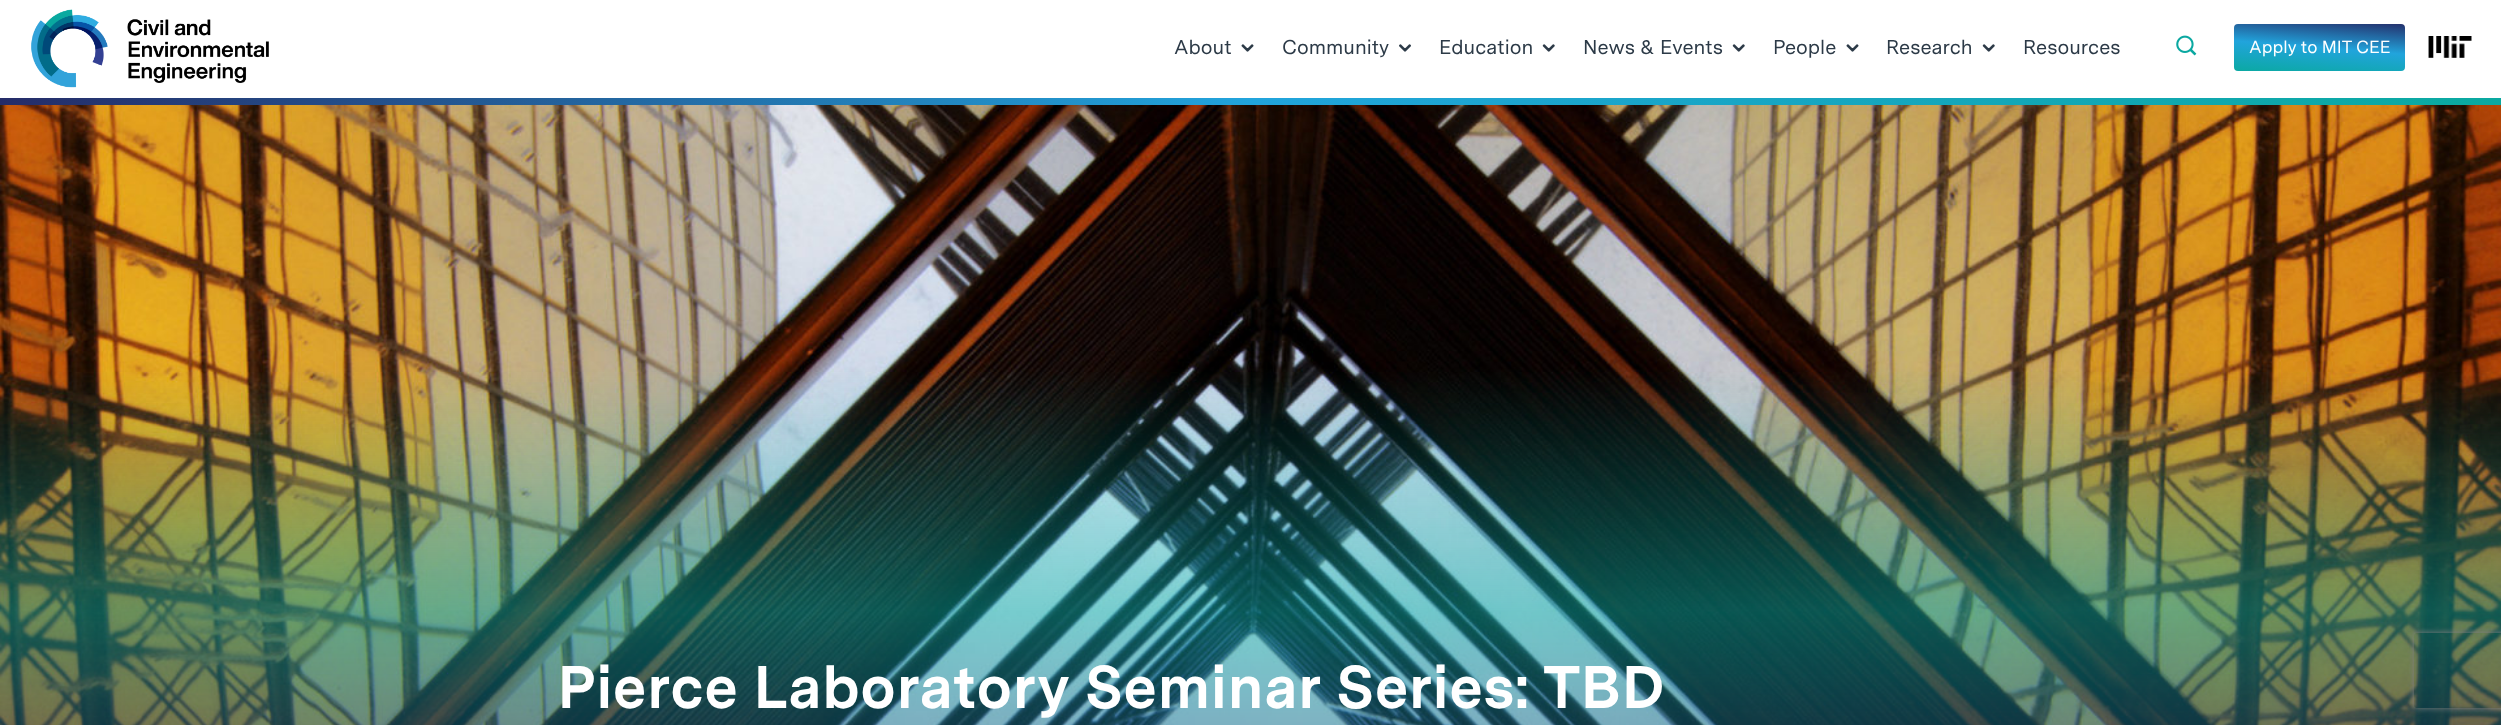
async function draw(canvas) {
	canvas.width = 2501;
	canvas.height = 725;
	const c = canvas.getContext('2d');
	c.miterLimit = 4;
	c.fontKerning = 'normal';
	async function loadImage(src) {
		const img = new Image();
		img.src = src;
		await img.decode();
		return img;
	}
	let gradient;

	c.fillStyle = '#fff';
	c.fillRect(0, 0, 2501, 725);
	c.drawImage(await loadImage('img1.png'), 31, 9, 238, 79);
	c.font = '20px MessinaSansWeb';
	c.fillStyle = '#2c3a47';
	c.fillText('About', 1174, 54);
	c.drawImage(await loadImage('img2.png'), 1241, 44, 13, 8);
	c.fillText('Community', 1282, 54);
	c.drawImage(await loadImage('img3.png'), 1399, 44, 12, 8);
	c.fillText('Education', 1439, 54);
	c.drawImage(await loadImage('img4.png'), 1542, 44, 13, 8);
	c.fillText('News & Events', 1583, 54);
	c.drawImage(await loadImage('img4.png'), 1732, 44, 13, 8);
	c.fillText('People', 1773, 54);
	c.drawImage(await loadImage('img2.png'), 1846, 44, 13, 8);
	c.fillText('Research', 1886, 54);
	c.drawImage(await loadImage('img4.png'), 1982, 44, 13, 8);
	c.fillText('Resources', 2023, 54);
	c.drawImage(await loadImage('img5.png'), 2176, 35, 21, 21);
	gradient = c.createLinearGradient(2317, 79, 2322, 16);
	gradient.addColorStop(0, '#0aa9a0');
	gradient.addColorStop(0.5, '#21a4dc');
	gradient.addColorStop(1, '#252c68');
	c.fillStyle = gradient;
	c.beginPath();
	c.roundRect(2234, 24, 171, 47, 4);
	c.fill();
	c.font = '17.5px MessinaSansWeb';
	c.fillStyle = '#fff';
	c.fillText('Apply to MIT CEE', 2249, 53);
	c.drawImage(await loadImage('img6.png'), 2428, 36, 44, 22);
	gradient = c.createLinearGradient(0, 101, 2501, 101);
	gradient.addColorStop(0, '#252c68');
	gradient.addColorStop(0.5, '#21a4dc');
	gradient.addColorStop(1, '#0aa9a0');
	c.fillStyle = gradient;
	c.fillRect(0, 98, 2501, 7);
	c.drawImage(await loadImage('img7.png'), 0, 105, 2501, 620);
	c.font = 'bold 60px MessinaSansWeb';
	c.fillStyle = '#fff';
	c.fillText('Pierce Laboratory Seminar Series: TBD', 557, 708);
	c.save();
	c.beginPath();
	c.moveTo(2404, 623);
	c.lineTo(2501, 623);
	c.lineTo(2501, 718);
	c.lineTo(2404, 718);
	c.closePath();
	c.moveTo(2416.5, 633);
	c.lineTo(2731.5, 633);
	c.bezierCurveTo(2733, 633, 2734, 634, 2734, 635.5);
	c.lineTo(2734, 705.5);
	c.bezierCurveTo(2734, 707, 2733, 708, 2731.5, 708);
	c.lineTo(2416.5, 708);
	c.bezierCurveTo(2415, 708, 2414, 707, 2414, 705.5);
	c.lineTo(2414, 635.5);
	c.bezierCurveTo(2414, 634, 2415, 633, 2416.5, 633);
	c.closePath();
	c.clip('evenodd');
	c.fillStyle = '#808080';
	c.filter = 'blur(3px)';
	c.beginPath();
	c.roundRect(2414, 633, 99, 75, 2.5);
	c.fill();
	c.filter = 'none';
	c.restore();
}

draw(document.querySelector('canvas'));
